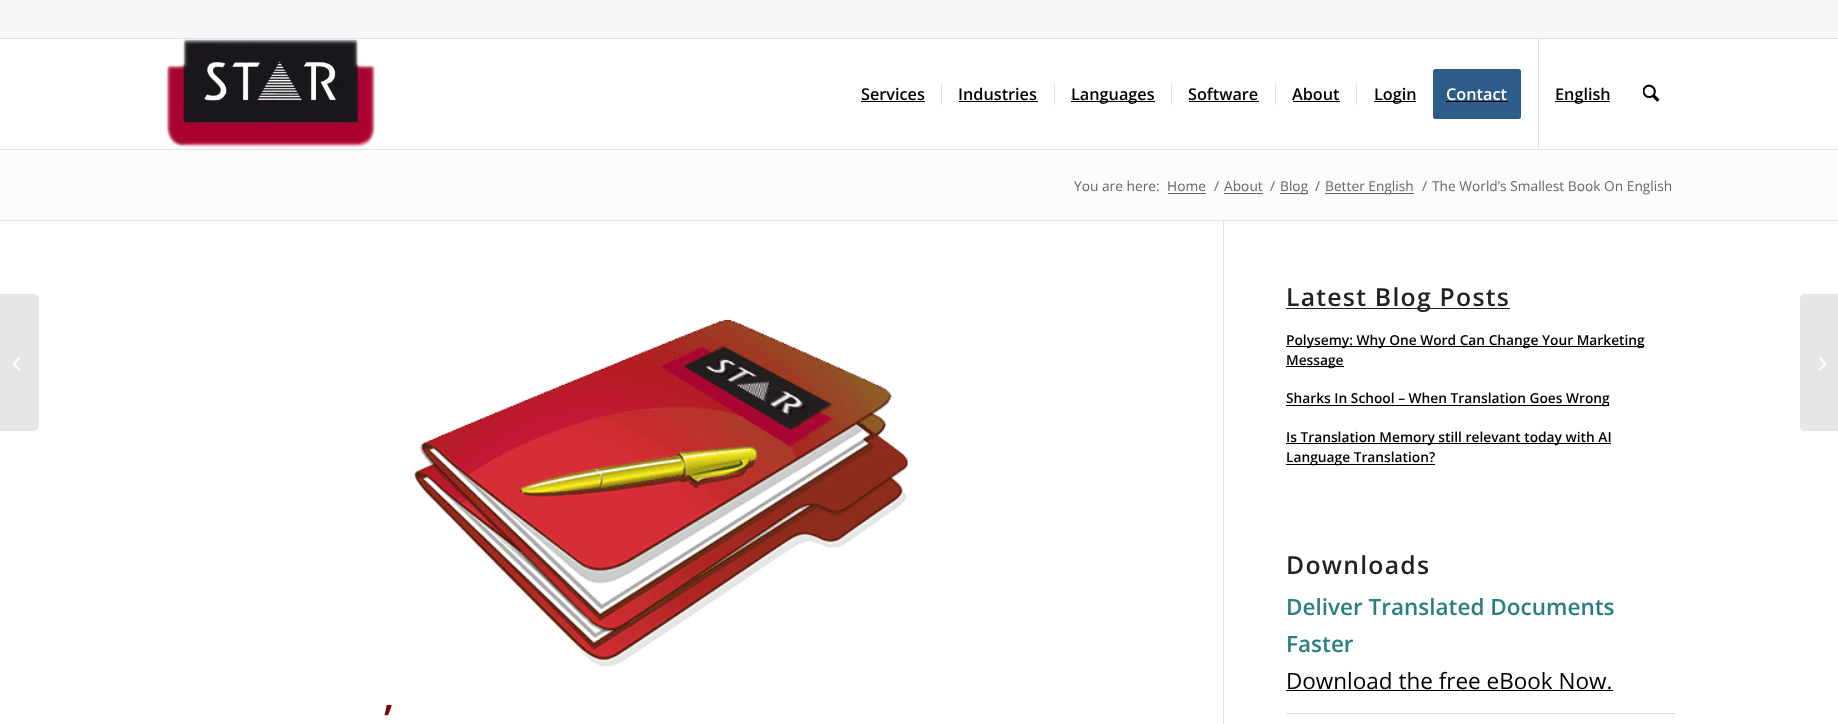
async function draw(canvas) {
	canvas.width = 1838;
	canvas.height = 724;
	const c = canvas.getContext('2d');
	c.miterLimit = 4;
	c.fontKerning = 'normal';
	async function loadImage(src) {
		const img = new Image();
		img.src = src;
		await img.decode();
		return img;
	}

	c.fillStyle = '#fff';
	c.fillRect(0, 0, 1838, 724);
	for (const [x, y, w, h, color] of [
		[0, 0, 1838, 38, '#f8f8f8'],
		[0, 38, 1838, 1, '#e1e1e1'],
		[0, 149, 1838, 1, '#e1e1e1'],
	]) {
		c.fillStyle = color;
		c.fillRect(x, y, w, h);
	}
	c.drawImage(await loadImage('img1.png'), 166, 39, 210, 109);
	c.font = '600 16.25px Open Sans';
	c.fillStyle = '#000';
	c.fillText('Services', 861, 100);
	c.fillRect(861, 101, 64, 1);
	c.fillText('Industries', 958, 100);
	for (const [x, y, w, h, color] of [
		[941, 83, 1, 22, '#e1e1e1'],
		[959, 101, 79, 1, '#000'],
		[1071, 101, 84, 1, '#000'],
	]) {
		c.fillStyle = color;
		c.fillRect(x, y, w, h);
	}
	c.fillText('Languages', 1071, 100);
	c.fillStyle = '#e1e1e1';
	c.fillRect(1054, 83, 1, 22);
	c.fillStyle = '#000';
	c.fillText('Software', 1188, 100);
	c.fillStyle = '#e1e1e1';
	c.fillRect(1171, 83, 1, 22);
	c.fillStyle = '#000';
	c.fillRect(1189, 101, 70, 1);
	c.fillText('About', 1292, 100);
	for (const [x, y, w, h, color] of [
		[1275, 83, 1, 22, '#e1e1e1'],
		[1293, 101, 47, 1, '#000'],
		[1374, 101, 42, 1, '#000'],
	]) {
		c.fillStyle = color;
		c.fillRect(x, y, w, h);
	}
	c.fillText('Login', 1374, 100);
	c.fillStyle = '#e1e1e1';
	c.fillRect(1356, 83, 1, 22);
	c.fillStyle = '#2d5c88';
	c.beginPath();
	c.roundRect(1434.5, 70.5, 85, 47, 1);
	c.fill();
	c.strokeStyle = '#2d5c88';
	c.lineWidth = 3;
	c.stroke();
	c.fillStyle = '#fff';
	c.fillText('Contact', 1446, 100);
	for (const [x, y, w, h, color] of [
		[1446, 101, 62, 1, '#000'],
		[1538, 39, 1, 110, '#e1e1e1'],
		[1555, 101, 55, 1, '#000'],
	]) {
		c.fillStyle = color;
		c.fillRect(x, y, w, h);
	}
	c.fillText('English', 1555, 100);
	c.drawImage(await loadImage('img2.png'), 1643, 84, 17, 18);
	c.fillStyle = '#e6e6e6';
	c.beginPath();
	c.roundRect(0, 294, 39, 137, [0, 5, 5, 0]);
	c.fill();
	c.drawImage(await loadImage('img3.png'), 13, 357, 7, 14);
	c.fillStyle = '#fcfcfc';
	c.fillRect(0, 150, 1838, 70);
	c.font = '13.75px Open Sans';
	c.fillStyle = '#666';
	c.fillText('You are here:', 1074, 191);
	c.fillText('Home', 1167, 191);
	c.fillRect(1168, 193, 38, 1);
	c.fillText('/', 1214, 191);
	c.fillText('About', 1224, 191);
	c.fillRect(1224, 193, 39, 1);
	c.fillText('/', 1270, 191);
	c.fillRect(1280, 193, 28, 1);
	c.fillText('Blog', 1280, 191);
	c.fillText('/', 1315, 191);
	c.fillRect(1325, 193, 89, 1);
	for (const [text, x, y] of [
		['Better English', 1325, 191],
		['/', 1422, 191],
		['The World’s Smallest Book On English', 1432, 191],
	]) {
		c.fillText(text, x, y);
	}
	c.fillStyle = '#e1e1e1';
	c.fillRect(0, 220, 1838, 1);
	c.fillStyle = '#222';
	c.fillRect(1286, 308, 224, 1);
	c.letterSpacing = '1.25px';
	c.font = '600 24.75px Open Sans';
	c.fillText('Latest Blog Posts', 1286, 306);
	c.fillStyle = '#000';
	c.fillRect(1286, 346, 358, 1);
	c.letterSpacing = '0px';
	c.font = '600 13.75px Open Sans';
	c.fillText('Polysemy: Why One Word Can Change Your Marketing', 1286, 345);
	c.fillRect(1286, 366, 58, 1);
	c.fillText('Message', 1286, 365);
	c.fillRect(1286, 405, 323, 1);
	c.fillText('Sharks In School – When Translation Goes Wrong', 1286, 403);
	c.fillRect(1286, 443, 325, 1);
	c.fillText('Is Translation Memory still relevant today with AI', 1286, 442);
	c.fillRect(1286, 464, 149, 1);
	c.fillText('Language Translation?', 1286, 462);
	c.letterSpacing = '1.25px';
	c.font = '600 24.75px Open Sans';
	c.fillStyle = '#222';
	c.fillText('Downloads', 1286, 574);
	c.letterSpacing = '0px';
	c.font = '600 22.5px Open Sans';
	c.fillStyle = '#297f80';
	c.fillText('Deliver Translated Documents', 1286, 615);
	c.fillText('Faster', 1286, 652);
	c.font = '22.5px Open Sans';
	c.fillStyle = '#000';
	c.fillText('Download the free eBook Now.', 1286, 689);
	for (const [x, y, w, h, color] of [
		[1286, 690, 327, 1, '#000'],
		[1286, 713, 390, 1, '#ddd'],
		[1223, 221, 1, 503, '#e1e1e1'],
	]) {
		c.fillStyle = color;
		c.fillRect(x, y, w, h);
	}
	c.drawImage(await loadImage('img4.png'), 414, 319, 494, 349);
	c.letterSpacing = '1.25px';
	c.font = '600 42px Open Sans';
	c.fillStyle = '#800000';
	c.fillText('’', 384, 735);
	c.fillStyle = '#e6e6e6';
	c.beginPath();
	c.moveTo(1805, 294);
	c.lineTo(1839, 294);
	c.lineTo(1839, 431);
	c.lineTo(1805, 431);
	c.bezierCurveTo(1802, 431, 1800, 429, 1800, 426);
	c.lineTo(1800, 299);
	c.bezierCurveTo(1800, 296, 1802, 294, 1805, 294);
	c.closePath();
	c.fill();
	c.drawImage(await loadImage('img5.png'), 1819, 357, 7, 14);
}

draw(document.querySelector('canvas'));
